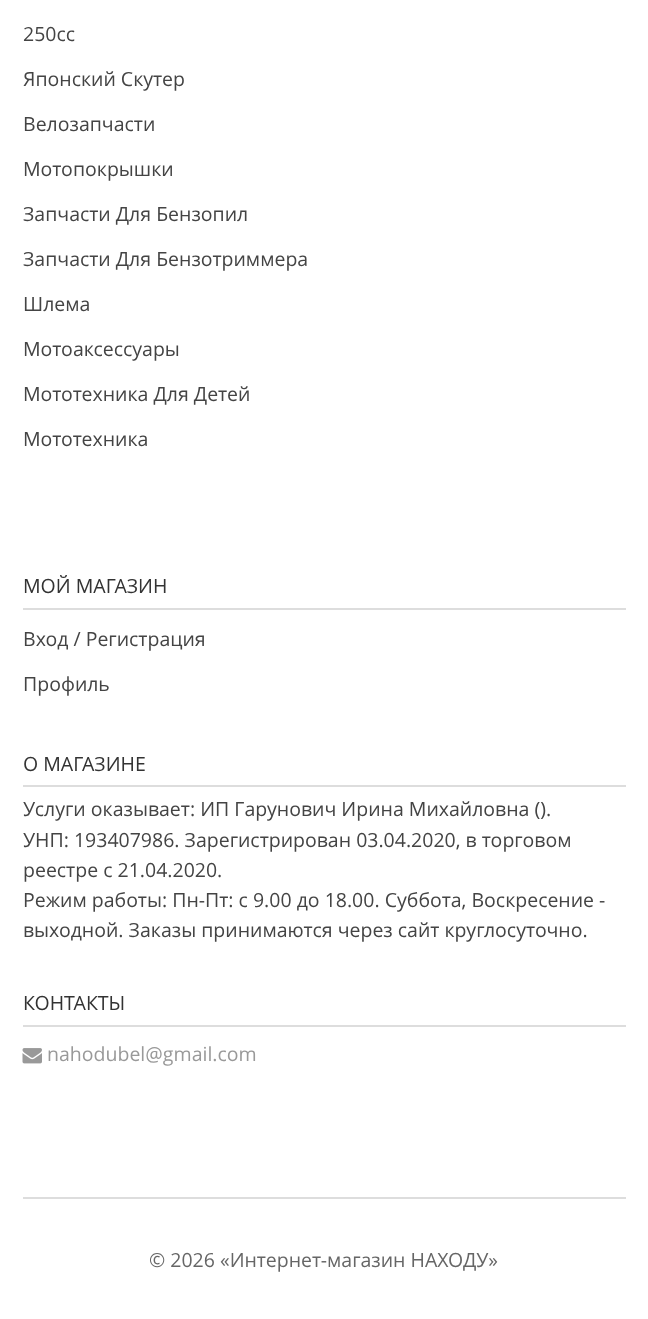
async function draw(canvas) {
	canvas.width = 648;
	canvas.height = 1319;
	const c = canvas.getContext('2d');
	c.miterLimit = 4;
	c.fontKerning = 'normal';
	async function loadImage(src) {
		const img = new Image();
		img.src = src;
		await img.decode();
		return img;
	}

	c.fillStyle = '#fff';
	c.fillRect(0, 0, 648, 1319);
	c.font = '19.5px Open Sans';
	c.fillStyle = '#444';
	for (const [text, x, y] of [
		['250сс', 23, 41],
		['Японский Скутер', 23, 86],
		['Велозапчасти', 23, 131],
		['Мотопокрышки', 23, 176],
		['Запчасти Для Бензопил', 23, 221],
		['Запчасти Для Бензотриммера', 23, 266],
		['Шлема', 23, 311],
		['Мотоаксессуары', 23, 356],
		['Мототехника Для Детей', 23, 401],
		['Мототехника', 23, 446],
	]) {
		c.fillText(text, x, y);
	}
	c.fillStyle = '#ddd';
	c.fillRect(23, 608, 603, 2);
	c.fillStyle = '#333';
	c.fillText('МОЙ МАГАЗИН', 23, 593);
	c.fillStyle = '#444';
	c.fillText('Вход / Регистрация', 23, 646);
	c.fillText('Профиль', 23, 691);
	c.fillStyle = '#ddd';
	c.fillRect(23, 785, 603, 2);
	c.fillStyle = '#333';
	c.fillText('О МАГАЗИНЕ', 23, 771);
	c.fillStyle = '#444';
	for (const [text, x, y] of [
		['Услуги оказывает: ИП Гарунович Ирина Михайловна ().', 23, 816],
		['УНП: 193407986. Зарегистрирован 03.04.2020, в торговом', 23, 847],
		['реестре с 21.04.2020.', 23, 877],
		['Режим работы: Пн-Пт: с 9.00 до 18.00. Суббота, Воскресение -', 23, 907],
		['выходной. Заказы принимаются через сайт круглосуточно.', 23, 937],
	]) {
		c.fillText(text, x, y);
	}
	c.fillStyle = '#ddd';
	c.fillRect(23, 1025, 603, 2);
	c.fillStyle = '#333';
	c.fillText('КОНТАКТЫ', 23, 1010);
	c.drawImage(await loadImage('img1.png'), 22, 1048, 20, 16);
	c.fillStyle = '#999';
	c.fillText('nahodubel@gmail.com', 47, 1061);
	c.fillStyle = '#ddd';
	c.fillRect(23, 1197, 603, 2);
	c.fillStyle = '#666';
	c.fillText('© 2026 «Интернет-магазин НАХОДУ»', 149, 1267);
}

draw(document.querySelector('canvas'));
